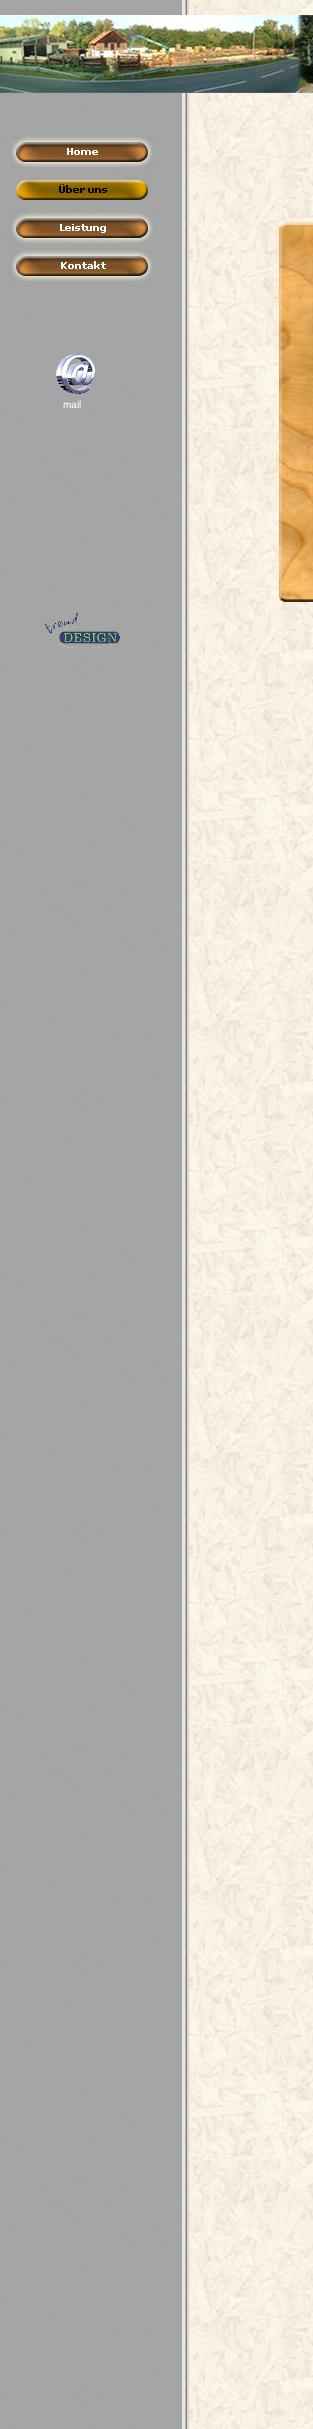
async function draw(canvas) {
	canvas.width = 313;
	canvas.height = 2429;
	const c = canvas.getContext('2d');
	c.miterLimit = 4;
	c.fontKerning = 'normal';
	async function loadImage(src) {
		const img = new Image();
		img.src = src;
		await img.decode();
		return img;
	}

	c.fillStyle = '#fff';
	c.fillRect(0, 0, 313, 2429);
	c.drawImage(await loadImage('img1.png'), 0, 0, 313, 2429);
	c.drawImage(await loadImage('img2.png'), 0, 15, 313, 78);
	c.drawImage(await loadImage('img3.png'), 11, 136, 142, 32);
	c.drawImage(await loadImage('img4.png'), 16, 180, 132, 20);
	c.drawImage(await loadImage('img5.png'), 11, 212, 142, 32);
	c.drawImage(await loadImage('img6.png'), 11, 250, 142, 32);
	c.drawImage(await loadImage('img7.png'), 56, 354, 39, 40);
	c.font = '10px Liberation Sans';
	c.fillText('mail', 63, 408);
	c.drawImage(await loadImage('img8.png'), 45, 612, 75, 37);
	c.drawImage(await loadImage('img9.png'), 279, 222, 34, 40);
	c.drawImage(await loadImage('img10.png'), 279, 262, 34, 300);
	c.drawImage(await loadImage('img11.png'), 279, 562, 34, 40);
}

draw(document.querySelector('canvas'));
